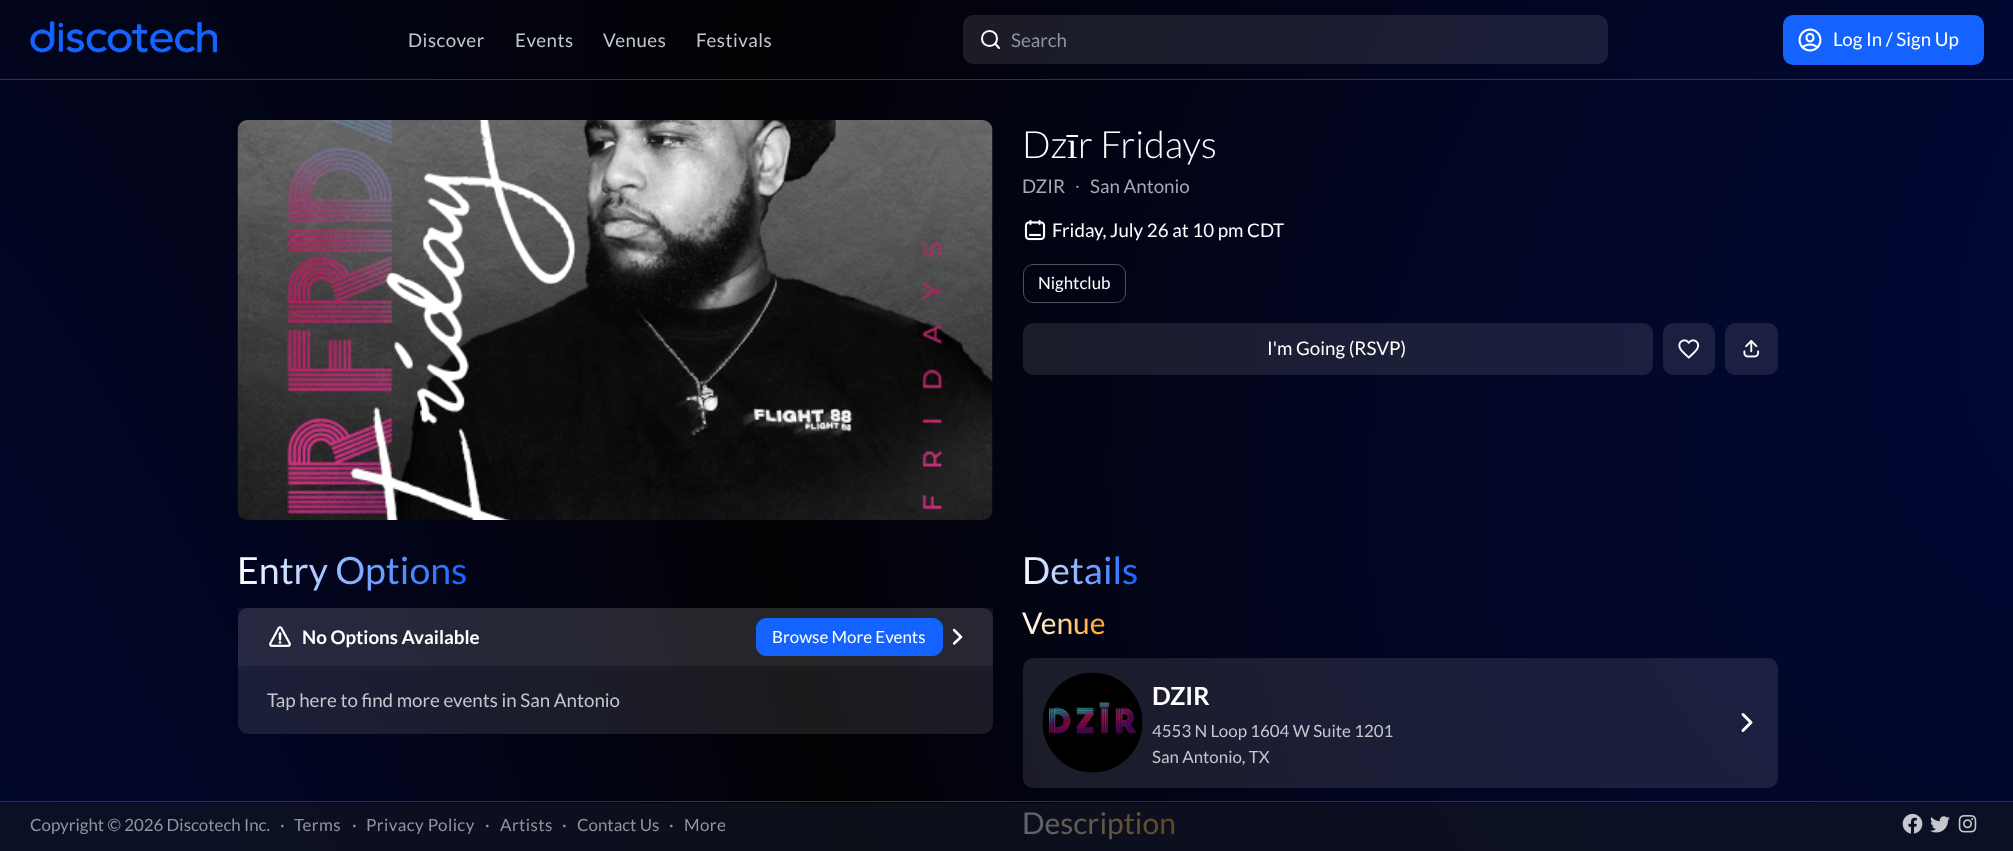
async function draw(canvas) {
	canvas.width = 2013;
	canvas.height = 851;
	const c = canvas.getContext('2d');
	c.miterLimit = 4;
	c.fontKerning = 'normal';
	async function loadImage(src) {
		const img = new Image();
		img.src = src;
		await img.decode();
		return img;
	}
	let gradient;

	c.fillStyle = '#fff';
	c.fillRect(0, 0, 2013, 851);
	c.drawImage(await loadImage('img1.png'), 0, 0, 2013, 851);
	c.fillStyle = '#333338';
	c.fillRect(0, 79, 2013, 1);
	c.drawImage(await loadImage('img2.png'), 30, 21, 187, 32);
	c.letterSpacing = '0.5px';
	c.font = '18.75px Lato';
	c.fillStyle = '#c4c7cd';
	for (const [text, x, y] of [
		['Discover', 408, 47],
		['Events', 515, 47],
		['Venues', 603, 47],
		['Festivals', 696, 47],
	]) {
		c.fillText(text, x, y);
	}
	c.fillStyle = '#ffffff1a';
	c.beginPath();
	c.roundRect(963, 15, 645, 49, 10);
	c.fill();
	c.beginPath();
	c.moveTo(989.5, 46);
	c.bezierCurveTo(999.5, 46, 999.5, 31, 989.5, 31);
	c.bezierCurveTo(979.5, 31, 979.5, 46, 989.5, 46);
	c.closePath();
	c.moveTo(999, 48);
	c.lineTo(995, 43.5);
	c.strokeStyle = '#fff';
	c.lineWidth = 2;
	c.lineCap = 'round';
	c.lineJoin = 'round';
	c.stroke();
	c.letterSpacing = '0px';
	c.fillStyle = '#9095a1';
	c.fillText('Search', 1011, 47);
	c.fillStyle = '#1463ff';
	c.beginPath();
	c.roundRect(1783, 15, 201, 50, 10);
	c.fill();
	c.drawImage(await loadImage('img3.png'), 1798, 28, 24, 24);
	c.fillStyle = '#fff';
	c.fillText('Log In / Sign Up', 1833, 46);
	c.drawImage(await loadImage('img4.png'), 237, 120, 756, 400);
	c.font = '300 37.5px Lato';
	c.fillText('Dz', 1022, 158);
	c.font = '37.5px Liberation Serif';
	c.fillText('ī', 1067, 158);
	c.font = '300 37.5px Lato';
	c.fillText('r Fridays', 1078, 158);
	c.font = '18.75px Lato';
	c.fillStyle = '#a6aab4';
	c.fillText('DZIR', 1022, 193);
	c.font = '18.75px Liberation Serif';
	c.fillText('∙', 1075, 193);
	c.font = '18.75px Lato';
	c.fillText('San Antonio', 1090, 193);
	c.drawImage(await loadImage('img5.png'), 1024, 219, 22, 22);
	c.fillStyle = '#fff';
	c.fillText('Friday, July 26 at 10 pm CDT', 1052, 237);
	c.beginPath();
	c.roundRect(1023.5, 264.5, 102, 38, 9.5);
	c.strokeStyle = '#4f5159';
	c.lineWidth = 1;
	c.lineJoin = 'miter';
	c.stroke();
	c.font = '16.9px Lato';
	c.fillText('Nightclub', 1038, 289);
	c.fillStyle = '#ffffff1a';
	c.beginPath();
	c.roundRect(1023, 323, 630, 52, 10);
	c.fill();
	c.font = '18.75px Lato';
	c.fillStyle = '#fff';
	c.fillText('I\'m Going (RSVP)', 1267, 355);
	c.fillStyle = '#1b2041';
	c.beginPath();
	c.roundRect(1663, 323, 52, 52, 10);
	c.fill();
	c.drawImage(await loadImage('img6.png'), 1678, 339, 22, 20);
	c.fillStyle = '#1b2042';
	c.beginPath();
	c.roundRect(1725, 323, 53, 52, 10);
	c.fill();
	c.drawImage(await loadImage('img7.png'), 1743, 340, 17, 18);
	c.font = '37.5px Lato';
	gradient = c.createLinearGradient(237, 569, 467, 569);
	gradient.addColorStop(0, '#fff');
	gradient.addColorStop(1, '#1463ff');
	c.fillStyle = gradient;
	c.fillText('Entry Options', 237, 584);
	c.fillStyle = '#ffffff1a';
	c.beginPath();
	c.roundRect(238, 608, 755, 126, 10);
	c.fill();
	c.fillStyle = '#ffffff0d';
	c.fillRect(238, 608, 755, 58);
	c.drawImage(await loadImage('img8.png'), 269, 626, 22, 21);
	c.font = 'bold 18.75px Lato';
	c.fillStyle = '#fff';
	c.fillText('No Options Available', 302, 644);
	c.fillStyle = '#1463ff';
	c.beginPath();
	c.roundRect(756.5, 618.5, 186, 37, 9.5);
	c.fill();
	c.strokeStyle = '#1463ff';
	c.stroke();
	c.font = '16.9px Lato';
	c.fillStyle = '#fff';
	c.fillText('Browse More Events', 772, 643);
	c.save();
	c.beginPath();
	c.rect(953, 618, 10, 38);
	c.clip();
	c.beginPath();
	c.moveTo(954, 643.5);
	c.lineTo(961, 637);
	c.lineTo(954, 630);
	c.strokeStyle = '#fff';
	c.lineWidth = 2.5;
	c.lineJoin = 'round';
	c.stroke();
	c.restore();
	c.font = '18.75px Lato';
	c.fillStyle = '#c4c7cd';
	c.fillText('Tap here to find more events in San Antonio', 267, 707);
	c.font = '37.5px Lato';
	gradient = c.createLinearGradient(1022, 569, 1138, 569);
	gradient.addColorStop(0, '#fff');
	gradient.addColorStop(1, '#1463ff');
	c.fillStyle = gradient;
	c.fillText('Details', 1022, 584);
	c.font = '30px Lato';
	gradient = c.createLinearGradient(1022, 622, 1105, 622);
	gradient.addColorStop(0, '#fff');
	gradient.addColorStop(1, '#ffa41a');
	c.fillStyle = gradient;
	c.fillText('Venue', 1022, 634);
	c.fillStyle = '#ffffff1a';
	c.beginPath();
	c.roundRect(1023, 658, 755, 130, 10);
	c.fill();
	c.drawImage(await loadImage('img9.png'), 1042, 672, 101, 101);
	c.font = 'bold 25px Lato';
	c.fillStyle = '#fff';
	c.fillText('DZIR', 1152, 705);
	c.font = '16.9px Lato';
	c.fillStyle = '#c4c7cd';
	c.fillText('4553 N Loop 1604 W Suite 1201', 1152, 737);
	c.fillText('San Antonio, TX', 1152, 763);
	c.beginPath();
	c.moveTo(1743, 730.5);
	c.lineTo(1751, 722.5);
	c.lineTo(1743, 714.5);
	c.strokeStyle = '#fff';
	c.lineWidth = 3;
	c.lineJoin = 'round';
	c.stroke();
	c.font = '30px Lato';
	gradient = c.createLinearGradient(1022, 822, 1176, 822);
	gradient.addColorStop(0, '#fff');
	gradient.addColorStop(1, '#ffa41a');
	c.fillStyle = gradient;
	c.fillText('Description', 1022, 834);
	c.fillStyle = '#121623a8';
	c.fillRect(0, 803, 2013, 48);
	c.fillStyle = '#333338';
	c.fillRect(0, 801, 2013, 1);
	c.font = '16.9px Lato';
	c.fillStyle = '#9095a1';
	c.fillText('Copyright © 2026 Discotech Inc.', 30, 831);
	c.fillText('·', 280, 831);
	c.letterSpacing = '0.4px';
	c.fillText('Terms', 294, 831);
	c.letterSpacing = '0px';
	c.fillText('·', 352, 831);
	c.letterSpacing = '0.4px';
	c.fillText('Privacy Policy', 366, 831);
	c.letterSpacing = '0px';
	c.fillText('·', 485, 831);
	c.letterSpacing = '0.4px';
	c.fillText('Artists', 500, 831);
	c.letterSpacing = '0px';
	for (const [text, x, y] of [
		['·', 562, 831],
		['Contact Us', 577, 831],
		['·', 669, 831],
	]) {
		c.fillText(text, x, y);
	}
	c.letterSpacing = '0.4px';
	c.fillText('More', 684, 831);
	c.drawImage(await loadImage('img10.png'), 1902, 813, 21, 21);
	c.drawImage(await loadImage('img11.png'), 1930, 816, 20, 17);
	c.drawImage(await loadImage('img12.png'), 1958, 815, 19, 18);
}

draw(document.querySelector('canvas'));
